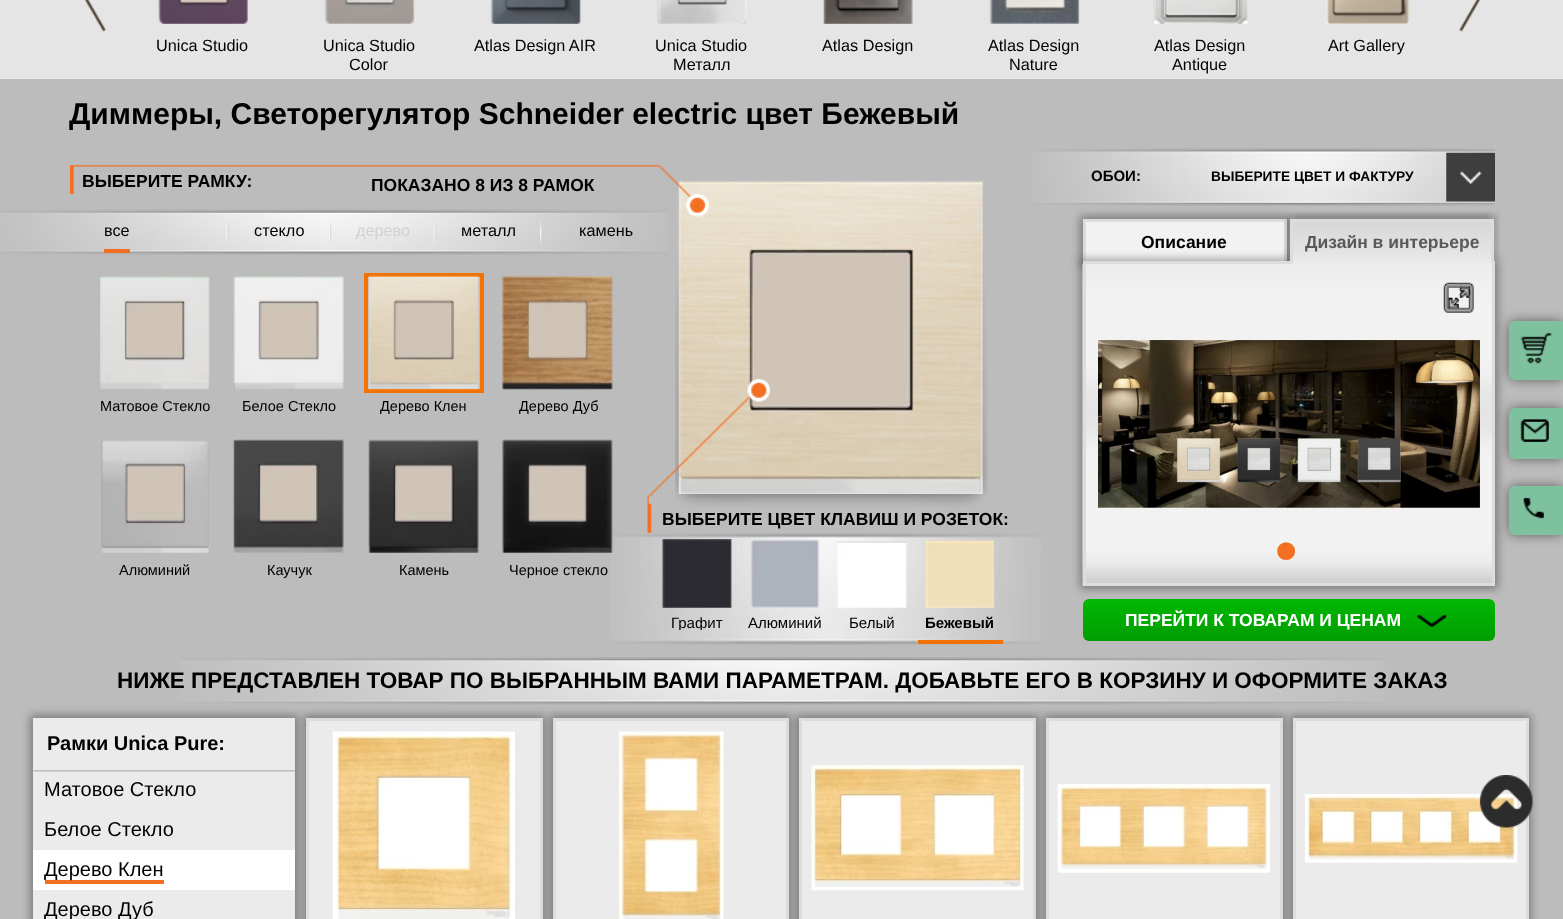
async function draw(canvas) {
	canvas.width = 1563;
	canvas.height = 919;
	const c = canvas.getContext('2d');
	c.miterLimit = 4;
	c.fontKerning = 'normal';
	async function loadImage(src) {
		const img = new Image();
		img.src = src;
		await img.decode();
		return img;
	}
	let gradient;

	c.fillStyle = '#bcbcbc';
	c.fillRect(0, 0, 1563, 919);
	c.fillStyle = '#e5e5e5';
	c.fillRect(0, 0, 1563, 79);
	c.drawImage(await loadImage('img1.png'), 84, 0, 23, 32);
	c.drawImage(await loadImage('img2.png'), 1458, 0, 23, 32);
	c.drawImage(await loadImage('img3.png'), 158, 0, 90, 24);
	c.font = '16.25px Liberation Sans';
	c.fillStyle = '#000';
	c.fillText('Unica Studio', 156, 51);
	c.drawImage(await loadImage('img4.png'), 324, 0, 91, 24);
	c.fillText('Unica Studio', 323, 51);
	c.fillText('Color', 349, 70);
	c.drawImage(await loadImage('img5.png'), 490, 0, 91, 24);
	c.fillText('Atlas Design AIR', 474, 51);
	c.drawImage(await loadImage('img6.png'), 657, 0, 90, 24);
	c.fillText('Unica Studio', 655, 51);
	c.fillText('Металл', 673, 70);
	c.drawImage(await loadImage('img7.png'), 823, 0, 90, 24);
	c.fillText('Atlas Design', 822, 51);
	c.drawImage(await loadImage('img8.png'), 989, 0, 91, 24);
	c.fillText('Atlas Design', 988, 51);
	c.fillText('Nature', 1009, 70);
	c.drawImage(await loadImage('img9.png'), 1153, 0, 95, 24);
	c.fillText('Atlas Design', 1154, 51);
	c.fillText('Antique', 1172, 70);
	c.drawImage(await loadImage('img10.png'), 1326, 0, 84, 24);
	c.fillText('Art Gallery', 1328, 51);
	c.font = 'bold 30px Liberation Sans';
	c.fillText('Диммеры, Светорегулятор Schneider electric цвет Бежевый', 69, 124);
	c.drawImage(await loadImage('img12.png'), 0, 209, 668, 46);
	c.drawImage(await loadImage('img25.png'), 675, 253, 313, 255);
	c.drawImage(await loadImage('img26.png'), 678, 181, 305, 313);
	c.drawImage(await loadImage('img11.png'), 70, 165, 639, 52);
	c.font = 'bold 17.5px Liberation Sans';
	c.fillText('ВЫБЕРИТЕ РАМКУ:', 82, 187);
	c.fillText('ПОКАЗАНО 8 ИЗ 8 РАМОК', 371, 191);
	c.fillStyle = '#f37022';
	c.fillRect(104, 249, 26, 4);
	c.font = '16.25px Liberation Sans';
	c.fillStyle = '#000';
	c.fillText('все', 104, 236);
	c.drawImage(await loadImage('img13.png'), 226, 222, 3, 21);
	c.fillText('стекло', 254, 236);
	c.drawImage(await loadImage('img14.png'), 329, 221, 3, 22);
	c.fillStyle = '#d2d2d2';
	c.fillText('дерево', 356, 236);
	c.drawImage(await loadImage('img15.png'), 433, 223, 4, 21);
	c.fillStyle = '#000';
	c.fillText('металл', 461, 236);
	c.drawImage(await loadImage('img16.png'), 540, 220, 2, 25);
	c.fillText('камень', 579, 236);
	c.drawImage(await loadImage('img17.png'), 100, 276, 110, 114);
	c.font = '14.5px Liberation Sans';
	c.fillText('Матовое Стекло', 100, 411);
	c.drawImage(await loadImage('img18.png'), 233, 276, 111, 114);
	c.fillText('Белое Стекло', 242, 411);
	c.strokeStyle = '#f37207';
	c.lineWidth = 4;
	c.strokeRect(366, 275, 116, 116);
	c.drawImage(await loadImage('img19.png'), 368, 275, 111, 115);
	c.fillText('Дерево Клен', 380, 411);
	c.drawImage(await loadImage('img20.png'), 502, 275, 111, 115);
	c.fillText('Дерево Дуб', 519, 411);
	c.drawImage(await loadImage('img21.png'), 101, 440, 108, 113);
	c.fillText('Алюминий', 119, 575);
	c.drawImage(await loadImage('img22.png'), 233, 439, 111, 114);
	c.fillText('Каучук', 267, 575);
	c.drawImage(await loadImage('img23.png'), 368, 439, 111, 114);
	c.fillText('Камень', 399, 575);
	c.drawImage(await loadImage('img28.png'), 610, 533, 431, 112);
	c.drawImage(await loadImage('img24.png'), 502, 439, 111, 114);
	c.fillText('Черное стекло', 509, 575);
	c.drawImage(await loadImage('img27.png'), 647, 379, 123, 154);
	c.font = 'bold 17.5px Liberation Sans';
	c.fillText('ВЫБЕРИТЕ ЦВЕТ КЛАВИШ И РОЗЕТОК:', 662, 525);
	c.drawImage(await loadImage('img29.png'), 662, 539, 70, 69);
	c.save();
	c.beginPath();
	c.rect(656, 616, 83, 14);
	c.clip();
	c.font = '15px Liberation Sans';
	c.fillText('Графит', 671, 628);
	c.restore();
	c.drawImage(await loadImage('img30.png'), 750, 539, 70, 69);
	c.font = '15px Liberation Sans';
	c.fillText('Алюминий', 748, 628);
	c.drawImage(await loadImage('img31.png'), 837, 541, 70, 67);
	c.fillText('Белый', 849, 628);
	c.fillStyle = '#f37207';
	c.fillRect(918, 640, 85, 4);
	c.drawImage(await loadImage('img32.png'), 924, 540, 71, 68);
	c.font = 'bold 15px Liberation Sans';
	c.fillStyle = '#000';
	c.fillText('Бежевый', 925, 628);
	c.drawImage(await loadImage('img33.png'), 1032, 148, 463, 58);
	c.drawImage(await loadImage('img34.png'), 1446, 152, 49, 50);
	c.fillText('ОБОИ:', 1091, 181);
	c.font = 'bold 13.75px Liberation Sans';
	c.fillText('ВЫБЕРИТЕ ЦВЕТ И ФАКТУРУ', 1211, 181);
	c.fillStyle = '#00000057';
	c.filter = 'blur(4px)';
	c.beginPath();
	c.rect(1080, 216, 209, 50);
	c.fill();
	c.filter = 'none';
	for (const [x, y, w, h, color] of [
		[1086, 222, 198, 39, '#f2f2f2'],
		[1083, 219, 203, 3, '#ddd'],
		[1284, 219, 3, 45, '#ddd'],
		[1083, 219, 3, 45, '#ddd'],
	]) {
		c.fillStyle = color;
		c.fillRect(x, y, w, h);
	}
	c.font = 'bold 17.5px Liberation Sans';
	c.fillStyle = '#000';
	c.fillText('Описание', 1141, 248);
	gradient = c.createLinearGradient(1289, 599, 1289, 641);
	gradient.addColorStop(0, '#02b803');
	gradient.addColorStop(1, '#009d01');
	c.fillStyle = gradient;
	c.beginPath();
	c.roundRect(1083, 599, 412, 42, 6);
	c.fill();
	c.fillStyle = '#00000057';
	c.filter = 'blur(4px)';
	c.beginPath();
	c.rect(1080, 259, 418, 330);
	c.fill();
	c.filter = 'none';
	c.drawImage(await loadImage('img35.png'), 1082, 264, 410, 322);
	c.strokeStyle = '#ddd';
	c.lineWidth = 3;
	c.strokeRect(1084.5, 262.5, 409, 322);
	c.fillStyle = '#00000024';
	c.filter = 'blur(2px)';
	c.beginPath();
	c.rect(1294, 214, 204, 45);
	c.fill();
	c.filter = 'none';
	c.filter = 'blur(2px)';
	c.beginPath();
	c.rect(1286, 214, 204, 45);
	c.fill();
	c.filter = 'none';
	gradient = c.createLinearGradient(1392, 221, 1392, 264);
	gradient.addColorStop(0, '#d6d6d6');
	gradient.addColorStop(1, '#eaeaea');
	c.fillStyle = gradient;
	c.fillRect(1293, 222, 198, 42);
	for (const [x, y, w, h, color] of [
		[1290, 219, 204, 3, '#ddd'],
		[1491, 219, 3, 45, '#ddd'],
		[1290, 219, 3, 45, '#ddd'],
	]) {
		c.fillStyle = color;
		c.fillRect(x, y, w, h);
	}
	c.fillStyle = '#595959';
	c.fillText('Дизайн в интерьере', 1305, 248);
	c.drawImage(await loadImage('img36.png'), 1443, 282, 31, 31);
	c.drawImage(await loadImage('img37.png'), 1098, 340, 382, 168);
	c.font = '75px Liberation Serif';
	c.fillStyle = '#f37022';
	c.fillText('•', 1273, 576);
	c.font = 'bold 17.5px Liberation Sans';
	c.fillStyle = '#fff';
	c.fillText('ПЕРЕЙТИ К ТОВАРАМ И ЦЕНАМ', 1125, 626);
	c.drawImage(await loadImage('img38.png'), 1417, 615, 30, 12);
	c.fillStyle = '#00000080';
	c.filter = 'blur(6px)';
	c.beginPath();
	c.roundRect(1509, 321, 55, 59, 6);
	c.fill();
	c.filter = 'none';
	c.fillStyle = '#7dc19f';
	c.beginPath();
	c.moveTo(1515, 321);
	c.lineTo(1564, 321);
	c.lineTo(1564, 380);
	c.lineTo(1515, 380);
	c.bezierCurveTo(1511.5, 380, 1509, 377.5, 1509, 374);
	c.lineTo(1509, 327);
	c.bezierCurveTo(1509, 323.5, 1511.5, 321, 1515, 321);
	c.closePath();
	c.fill();
	c.drawImage(await loadImage('img39.png'), 1520, 333, 32, 31);
	c.fillStyle = '#00000080';
	c.filter = 'blur(6px)';
	c.beginPath();
	c.roundRect(1509, 408, 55, 51, 6);
	c.fill();
	c.filter = 'none';
	c.fillStyle = '#7dc19f';
	c.beginPath();
	c.moveTo(1515, 408);
	c.lineTo(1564, 408);
	c.lineTo(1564, 459);
	c.lineTo(1515, 459);
	c.bezierCurveTo(1511.5, 459, 1509, 456.5, 1509, 453);
	c.lineTo(1509, 414);
	c.bezierCurveTo(1509, 410.5, 1511.5, 408, 1515, 408);
	c.closePath();
	c.fill();
	c.drawImage(await loadImage('img40.png'), 1520, 419, 29, 23);
	c.fillStyle = '#00000080';
	c.filter = 'blur(6px)';
	c.beginPath();
	c.roundRect(1509, 486, 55, 49, 6);
	c.fill();
	c.filter = 'none';
	c.fillStyle = '#7dc19f';
	c.beginPath();
	c.moveTo(1515, 486);
	c.lineTo(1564, 486);
	c.lineTo(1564, 535);
	c.lineTo(1515, 535);
	c.bezierCurveTo(1511.5, 535, 1509, 532.5, 1509, 529);
	c.lineTo(1509, 492);
	c.bezierCurveTo(1509, 488.5, 1511.5, 486, 1515, 486);
	c.closePath();
	c.fill();
	c.drawImage(await loadImage('img41.png'), 1523, 498, 21, 21);
	c.drawImage(await loadImage('img42.png'), 179, 657, 1206, 48);
	c.font = 'bold 22.5px Liberation Sans';
	c.fillStyle = '#000';
	c.fillText('НИЖЕ ПРЕДСТАВЛЕН ТОВАР ПО ВЫБРАННЫМ ВАМИ ПАРАМЕТРАМ. ДОБАВЬТЕ ЕГО В КОРЗИНУ И ОФОРМИТЕ ЗАКАЗ', 117, 688);
	c.fillStyle = '#00000057';
	c.filter = 'blur(4px)';
	c.beginPath();
	c.rect(30, 715, 268, 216);
	c.fill();
	c.filter = 'none';
	c.fillStyle = '#ebebeb';
	c.fillRect(33, 718, 262, 201);
	c.save();
	c.beginPath();
	c.rect(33, 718, 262, 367);
	c.clip();
	c.beginPath();
	c.rect(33, 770, 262, 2);
	c.clip();
	c.fillStyle = '#0000004a';
	c.filter = 'blur(1px)';
	c.beginPath();
	c.rect(33, 719, 268, 52);
	c.fill();
	c.filter = 'none';
	c.restore();
	c.font = 'bold 20px Liberation Sans';
	c.fillStyle = '#000';
	c.fillText('Рамки Unica Pure:', 47, 750);
	c.font = '20px Liberation Sans';
	c.fillText('Матовое Стекло', 44, 796);
	c.fillText('Белое Стекло', 44, 836);
	c.fillStyle = '#fff';
	c.fillRect(33, 850, 262, 40);
	c.fillStyle = '#f37022';
	c.fillRect(45, 880, 119, 4);
	c.fillStyle = '#000';
	c.fillText('Дерево Клен', 44, 876);
	c.fillText('Дерево Дуб', 44, 916);
	c.fillStyle = '#00000057';
	c.filter = 'blur(4px)';
	c.beginPath();
	c.rect(304, 715, 241, 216);
	c.fill();
	c.filter = 'none';
	c.fillStyle = '#ebebeb';
	c.beginPath();
	c.rect(307.5, 719.5, 234, 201);
	c.fill();
	c.stroke();
	c.drawImage(await loadImage('img43.png'), 332, 731, 183, 188);
	c.fillStyle = '#00000057';
	c.filter = 'blur(4px)';
	c.beginPath();
	c.rect(550, 715, 241, 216);
	c.fill();
	c.filter = 'none';
	c.fillStyle = '#ebebeb';
	c.beginPath();
	c.rect(554.5, 719.5, 233, 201);
	c.fill();
	c.stroke();
	c.drawImage(await loadImage('img44.png'), 619, 731, 105, 188);
	c.fillStyle = '#00000057';
	c.filter = 'blur(4px)';
	c.beginPath();
	c.rect(796, 715, 243, 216);
	c.fill();
	c.filter = 'none';
	c.fillStyle = '#ebebeb';
	c.beginPath();
	c.rect(800.5, 719.5, 234, 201);
	c.fill();
	c.stroke();
	c.drawImage(await loadImage('img45.png'), 811, 765, 213, 126);
	c.fillStyle = '#00000057';
	c.filter = 'blur(4px)';
	c.beginPath();
	c.rect(1044, 715, 241, 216);
	c.fill();
	c.filter = 'none';
	c.fillStyle = '#ebebeb';
	c.beginPath();
	c.rect(1047.5, 719.5, 234, 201);
	c.fill();
	c.stroke();
	c.drawImage(await loadImage('img46.png'), 1057, 784, 213, 89);
	c.fillStyle = '#00000057';
	c.filter = 'blur(4px)';
	c.beginPath();
	c.rect(1290, 715, 241, 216);
	c.fill();
	c.filter = 'none';
	c.fillStyle = '#ebebeb';
	c.beginPath();
	c.rect(1294.5, 719.5, 233, 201);
	c.fill();
	c.stroke();
	c.drawImage(await loadImage('img47.png'), 1305, 794, 213, 69);
	c.drawImage(await loadImage('img48.png'), 1479, 775, 54, 53);
}

draw(document.querySelector('canvas'));
